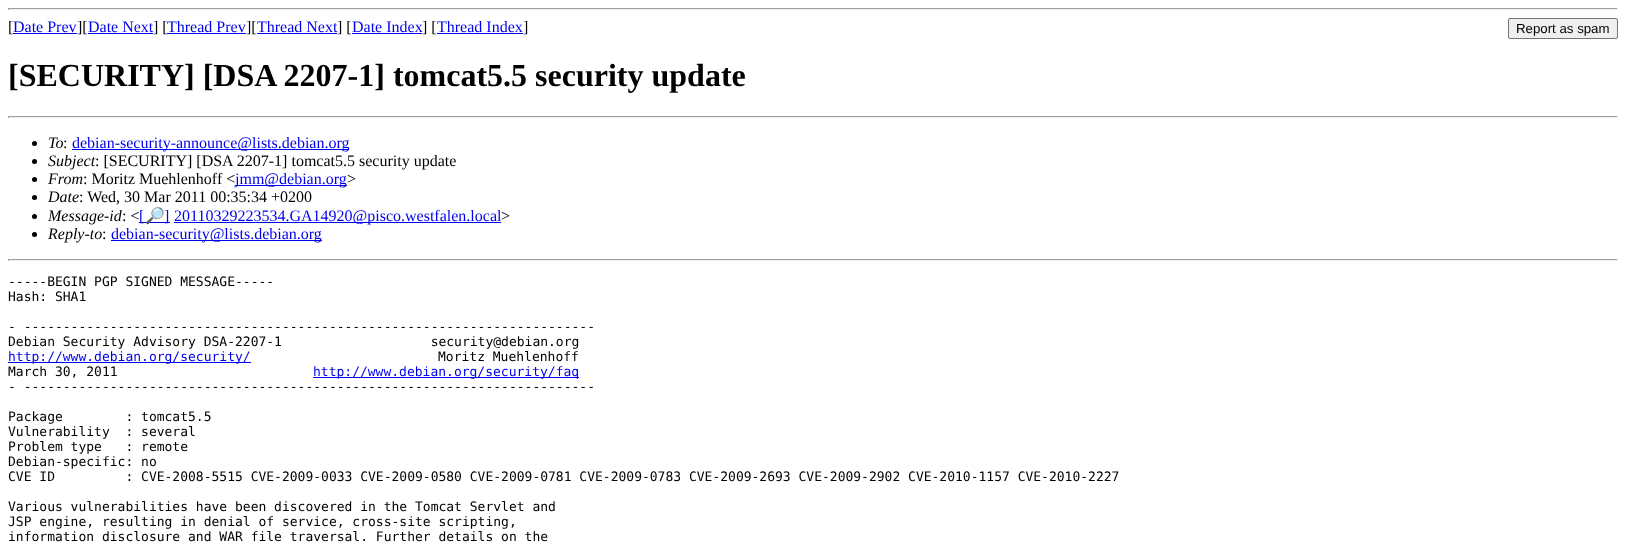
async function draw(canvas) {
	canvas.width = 1626;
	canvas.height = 549;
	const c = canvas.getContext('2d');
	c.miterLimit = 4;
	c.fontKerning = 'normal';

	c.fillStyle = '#fff';
	c.fillRect(0, 0, 1626, 549);
	for (const [x, y, w, h, color] of [
		[8, 8, 1610, 1, '#9f9f9f'],
		[1617, 8, 1, 2, '#eee'],
		[8, 9, 1610, 1, '#eee'],
		[8, 8, 1, 2, '#9f9f9f'],
	]) {
		c.fillStyle = color;
		c.fillRect(x, y, w, h);
	}
	c.font = '16px Liberation Serif';
	c.fillStyle = '#000';
	c.fillText('[', 8, 32);
	c.fillStyle = '#00e';
	c.fillText('Date Prev', 13, 32);
	c.fillRect(13, 33, 64, 1);
	c.fillStyle = '#000';
	c.fillText('][', 77, 32);
	c.fillStyle = '#00e';
	c.fillText('Date Next', 88, 32);
	c.fillRect(88, 33, 65, 1);
	c.fillStyle = '#000';
	c.fillText('] [', 153, 32);
	c.fillStyle = '#00e';
	c.fillText('Thread Prev', 167, 32);
	c.fillRect(167, 33, 79, 1);
	c.fillStyle = '#000';
	c.fillText('][', 246, 32);
	c.fillStyle = '#00e';
	c.fillText('Thread Next', 257, 32);
	c.fillRect(257, 33, 80, 1);
	c.fillStyle = '#000';
	c.fillText('] [', 337, 32);
	c.fillStyle = '#00e';
	c.fillText('Date Index', 352, 32);
	c.fillRect(352, 33, 70, 1);
	c.fillStyle = '#000';
	c.fillText('] [', 422, 32);
	c.fillStyle = '#00e';
	c.fillText('Thread Index', 437, 32);
	c.fillRect(437, 33, 86, 1);
	c.fillStyle = '#000';
	c.fillText(']', 523, 32);
	c.fillStyle = '#efefef';
	c.beginPath();
	c.roundRect(1508.5, 18.5, 109, 20, 1.5);
	c.fill();
	c.strokeStyle = '#767676';
	c.stroke();
	c.font = '13.25px Liberation Sans';
	c.fillStyle = '#000';
	c.fillText('Report as spam', 1516, 33);
	c.font = 'bold 32px Liberation Serif';
	c.fillText('[SECURITY] [DSA 2207-1] tomcat5.5 security update', 8, 86);
	for (const [x, y, w, h, color] of [
		[8, 116, 1610, 1, '#9f9f9f'],
		[1617, 116, 1, 2, '#eee'],
		[8, 117, 1610, 1, '#eee'],
		[8, 116, 1, 2, '#9f9f9f'],
	]) {
		c.fillStyle = color;
		c.fillRect(x, y, w, h);
	}
	c.fillStyle = '#000';
	c.beginPath();
	c.arc(34.5, 143.5, 2.5, 0, 2 * Math.PI);
	c.fill();
	c.font = 'italic 16px Liberation Serif';
	c.fillText('To', 48, 148);
	c.font = '16px Liberation Serif';
	c.fillText(':', 63, 148);
	c.fillStyle = '#00e';
	c.fillRect(72, 149, 277, 1);
	c.fillText('debian-security-announce@lists.debian.org', 72, 148);
	c.fillStyle = '#000';
	c.beginPath();
	c.arc(34.5, 161.5, 2.5, 0, 2 * Math.PI);
	c.fill();
	c.font = 'italic 16px Liberation Serif';
	c.fillText('Subject', 48, 166);
	c.font = '16px Liberation Serif';
	c.fillText(': [SECURITY] [DSA 2207-1] tomcat5.5 security update', 95, 166);
	c.beginPath();
	c.arc(34.5, 179.5, 2.5, 0, 2 * Math.PI);
	c.fill();
	c.font = 'italic 16px Liberation Serif';
	c.fillText('From', 48, 184);
	c.font = '16px Liberation Serif';
	c.fillText(': Moritz Muehlenhoff <', 83, 184);
	c.fillStyle = '#00e';
	c.fillRect(235, 185, 112, 1);
	c.fillText('jmm@debian.org', 235, 184);
	c.fillStyle = '#000';
	c.fillText('>', 347, 184);
	c.beginPath();
	c.arc(34.5, 197.5, 2.5, 0, 2 * Math.PI);
	c.fill();
	c.font = 'italic 16px Liberation Serif';
	c.fillText('Date', 48, 202);
	c.font = '16px Liberation Serif';
	c.fillText(': Wed, 30 Mar 2011 00:35:34 +0200', 79, 202);
	c.beginPath();
	c.arc(34.5, 216.5, 2.5, 0, 2 * Math.PI);
	c.fill();
	c.font = 'italic 16px Liberation Serif';
	c.fillText('Message-id', 48, 221);
	c.font = '16px Liberation Serif';
	c.fillText(': <', 122, 221);
	c.fillStyle = '#00e';
	c.fillRect(139, 222, 31, 1);
	c.fillText('[', 139, 221);
	c.font = '16px Noto Color Emoji';
	c.fillText('🔎', 145, 221);
	c.font = '16px Liberation Serif';
	c.fillText(']', 164, 221);
	c.fillRect(174, 222, 327, 1);
	c.fillText('20110329223534.GA14920@pisco.westfalen.local', 174, 221);
	c.fillStyle = '#000';
	c.fillText('>', 501, 221);
	c.beginPath();
	c.arc(34.5, 234.5, 2.5, 0, 2 * Math.PI);
	c.fill();
	c.font = 'italic 16px Liberation Serif';
	c.fillText('Reply-to', 48, 239);
	c.font = '16px Liberation Serif';
	c.fillText(':', 102, 239);
	c.fillStyle = '#00e';
	c.fillRect(111, 240, 211, 1);
	c.fillText('debian-security@lists.debian.org', 111, 239);
	for (const [x, y, w, h, color] of [
		[8, 259, 1610, 1, '#9f9f9f'],
		[1617, 259, 1, 2, '#eee'],
		[8, 260, 1610, 1, '#eee'],
		[8, 259, 1, 2, '#9f9f9f'],
	]) {
		c.fillStyle = color;
		c.fillRect(x, y, w, h);
	}
	c.font = '13px DejaVu Sans Mono';
	c.fillStyle = '#000';
	for (const [text, x, y] of [
		['-----BEGIN PGP SIGNED MESSAGE-----', 8, 286],
		['Hash: SHA1', 8, 301],
		['- -------------------------------------------------------------------------', 8, 331],
		['Debian Security Advisory DSA-2207-1                   security@debian.org', 8, 346],
	]) {
		c.fillText(text, x, y);
	}
	c.fillStyle = '#00e';
	c.fillRect(8, 362, 243, 1);
	c.fillText('http://www.debian.org/security/', 8, 361);
	c.fillStyle = '#000';
	c.fillText('Moritz Muehlenhoff', 438, 361);
	c.fillText('March 30, 2011', 8, 376);
	c.fillStyle = '#00e';
	c.fillRect(313, 377, 266, 1);
	c.fillText('http://www.debian.org/security/faq', 313, 376);
	c.fillStyle = '#000';
	for (const [text, x, y] of [
		['- -------------------------------------------------------------------------', 8, 391],
		['Package        : tomcat5.5', 8, 421],
		['Vulnerability  : several', 8, 436],
		['Problem type   : remote', 8, 451],
		['Debian-specific: no', 8, 466],
		['CVE ID         : CVE-2008-5515 CVE-2009-0033 CVE-2009-0580 CVE-2009-0781 CVE-2009-0783 CVE-2009-2693 CVE-2009-2902 CVE-2010-1157 CVE-2010-2227', 8, 481],
		['Various vulnerabilities have been discovered in the Tomcat Servlet and', 8, 511],
		['JSP engine, resulting in denial of service, cross-site scripting,', 8, 526],
		['information disclosure and WAR file traversal. Further details on the', 8, 541],
	]) {
		c.fillText(text, x, y);
	}
}

draw(document.querySelector('canvas'));
